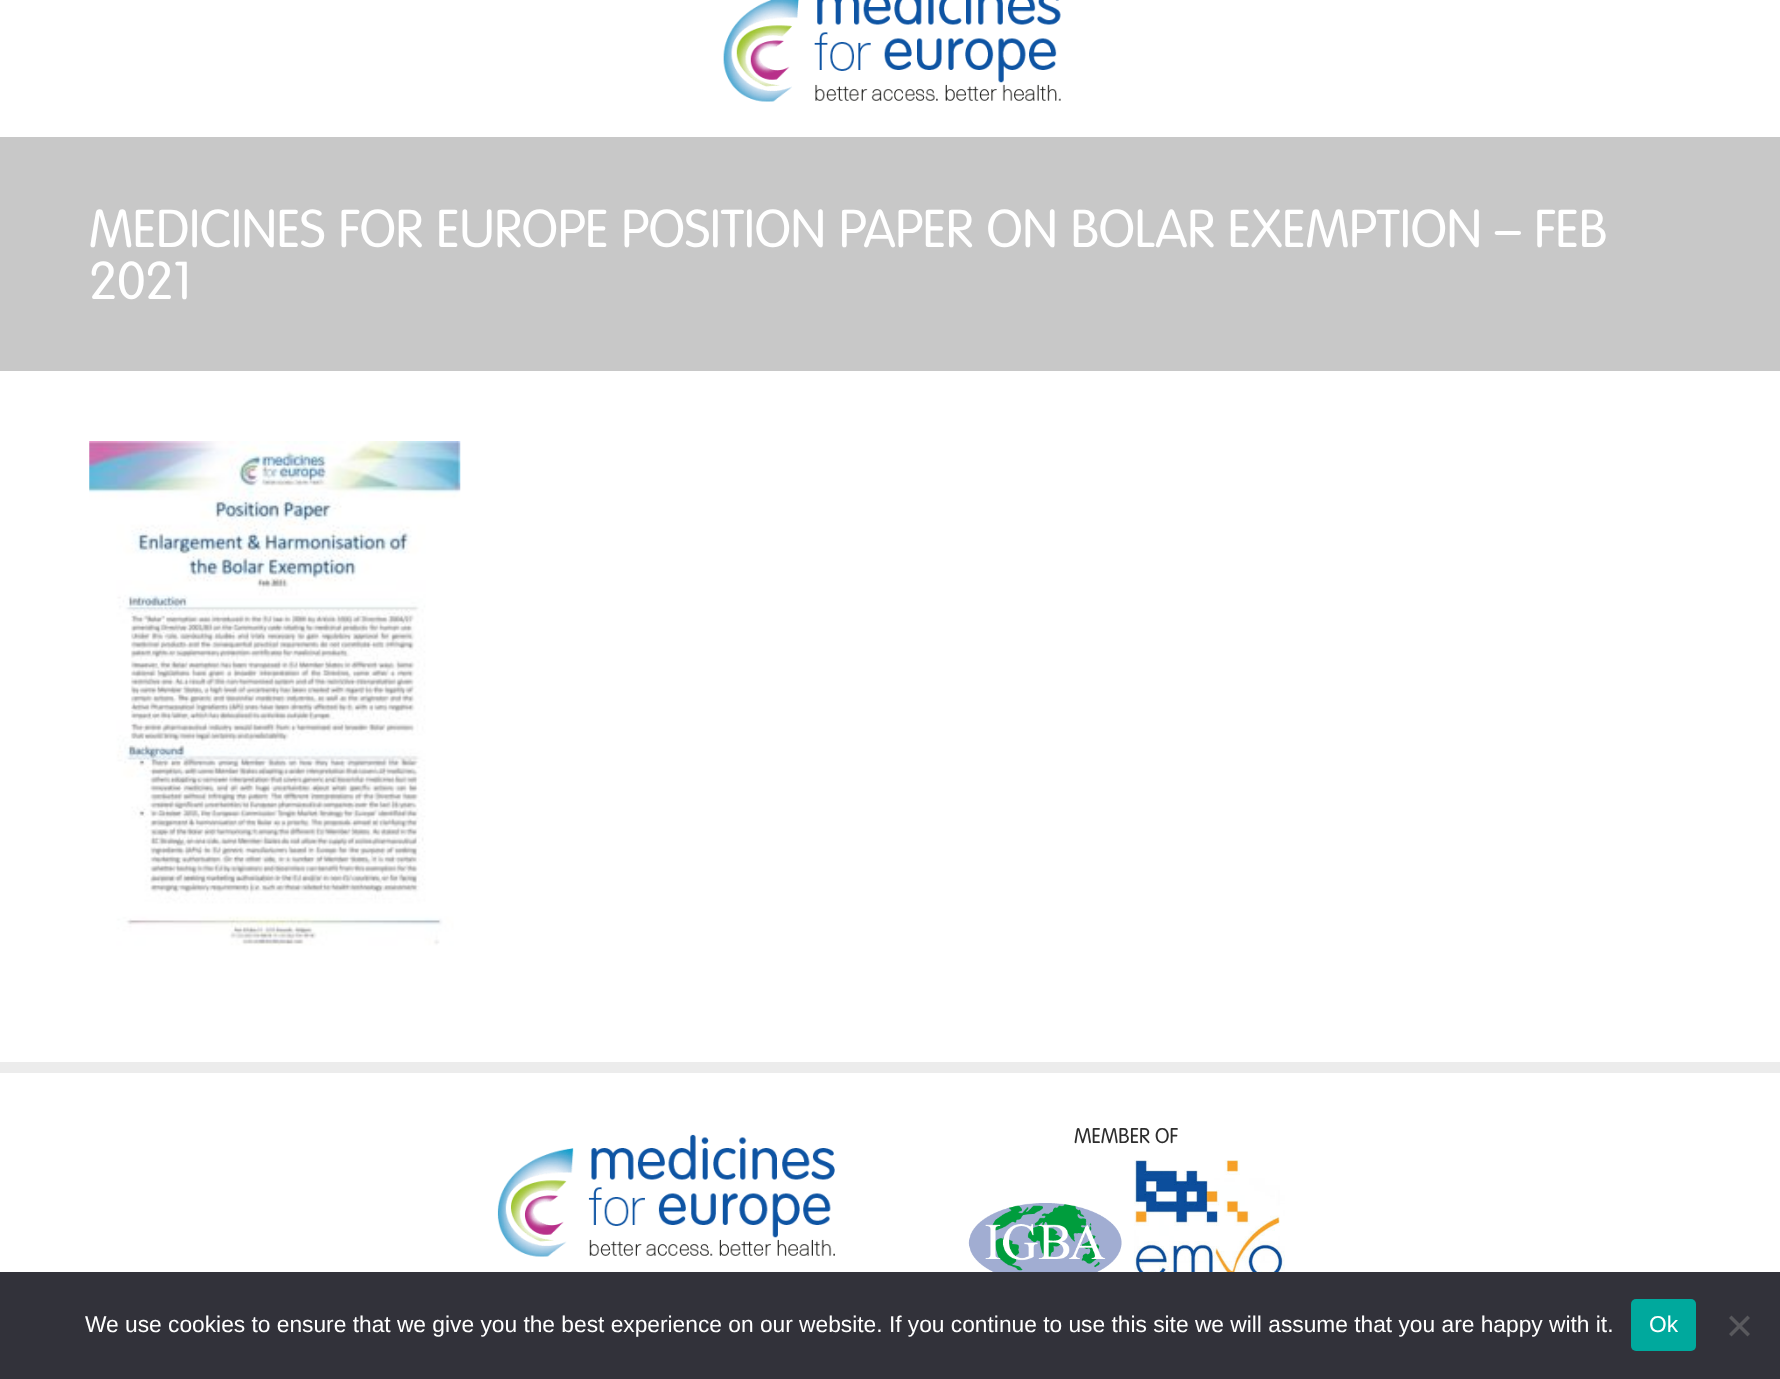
async function draw(canvas) {
	canvas.width = 1780;
	canvas.height = 1379;
	const c = canvas.getContext('2d');
	c.miterLimit = 4;
	c.fontKerning = 'normal';
	async function loadImage(src) {
		const img = new Image();
		img.src = src;
		await img.decode();
		return img;
	}

	c.fillStyle = '#fff';
	c.fillRect(0, 0, 1780, 1379);
	c.drawImage(await loadImage('img1.png'), 723, 0, 338, 102);
	c.fillStyle = '#c8c8c8';
	c.fillRect(0, 137, 1780, 234);
	c.font = '300 52.5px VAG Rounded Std';
	c.fillStyle = '#fff';
	c.fillText('MEDICINES FOR EUROPE POSITION PAPER ON BOLAR EXEMPTION – FEB', 89, 247);
	c.fillText('2021', 89, 299);
	c.drawImage(await loadImage('img2.png'), 89, 441, 372, 505);
	c.fillStyle = '#ececec';
	c.fillRect(0, 1062, 1780, 11);
	c.drawImage(await loadImage('img3.png'), 497, 1134, 338, 123);
	c.font = '300 21px VAG Rounded Std';
	c.fillStyle = '#2d2d2d';
	c.fillText('MEMBER OF', 1074, 1143);
	c.drawImage(await loadImage('img4.png'), 968, 1203, 154, 69);
	c.drawImage(await loadImage('img5.png'), 1134, 1160, 151, 112);
	c.fillStyle = '#32323a';
	c.fillRect(0, 1272, 1780, 107);
	c.font = '22.75px Liberation Sans';
	c.fillStyle = '#fff';
	c.fillText('We use cookies to ensure that we give you the best experience on our website. If you continue to use this site we will assume that you are happy with it.', 85, 1332);
	c.fillStyle = '#00a99d';
	c.beginPath();
	c.roundRect(1631, 1299, 65, 52, 5);
	c.fill();
	c.fillStyle = '#fff';
	c.fillText('Ok', 1649, 1332);
	c.fillStyle = '#59595d';
	c.beginPath();
	c.moveTo(1747.5, 1315.5);
	c.lineTo(1750, 1318);
	c.lineTo(1731.5, 1336.5);
	c.lineTo(1729, 1334);
	c.closePath();
	c.fill();
	c.beginPath();
	c.moveTo(1729, 1318);
	c.lineTo(1731.5, 1315.5);
	c.lineTo(1750, 1334);
	c.lineTo(1747.5, 1336.5);
	c.closePath();
	c.fill();
}

draw(document.querySelector('canvas'));
